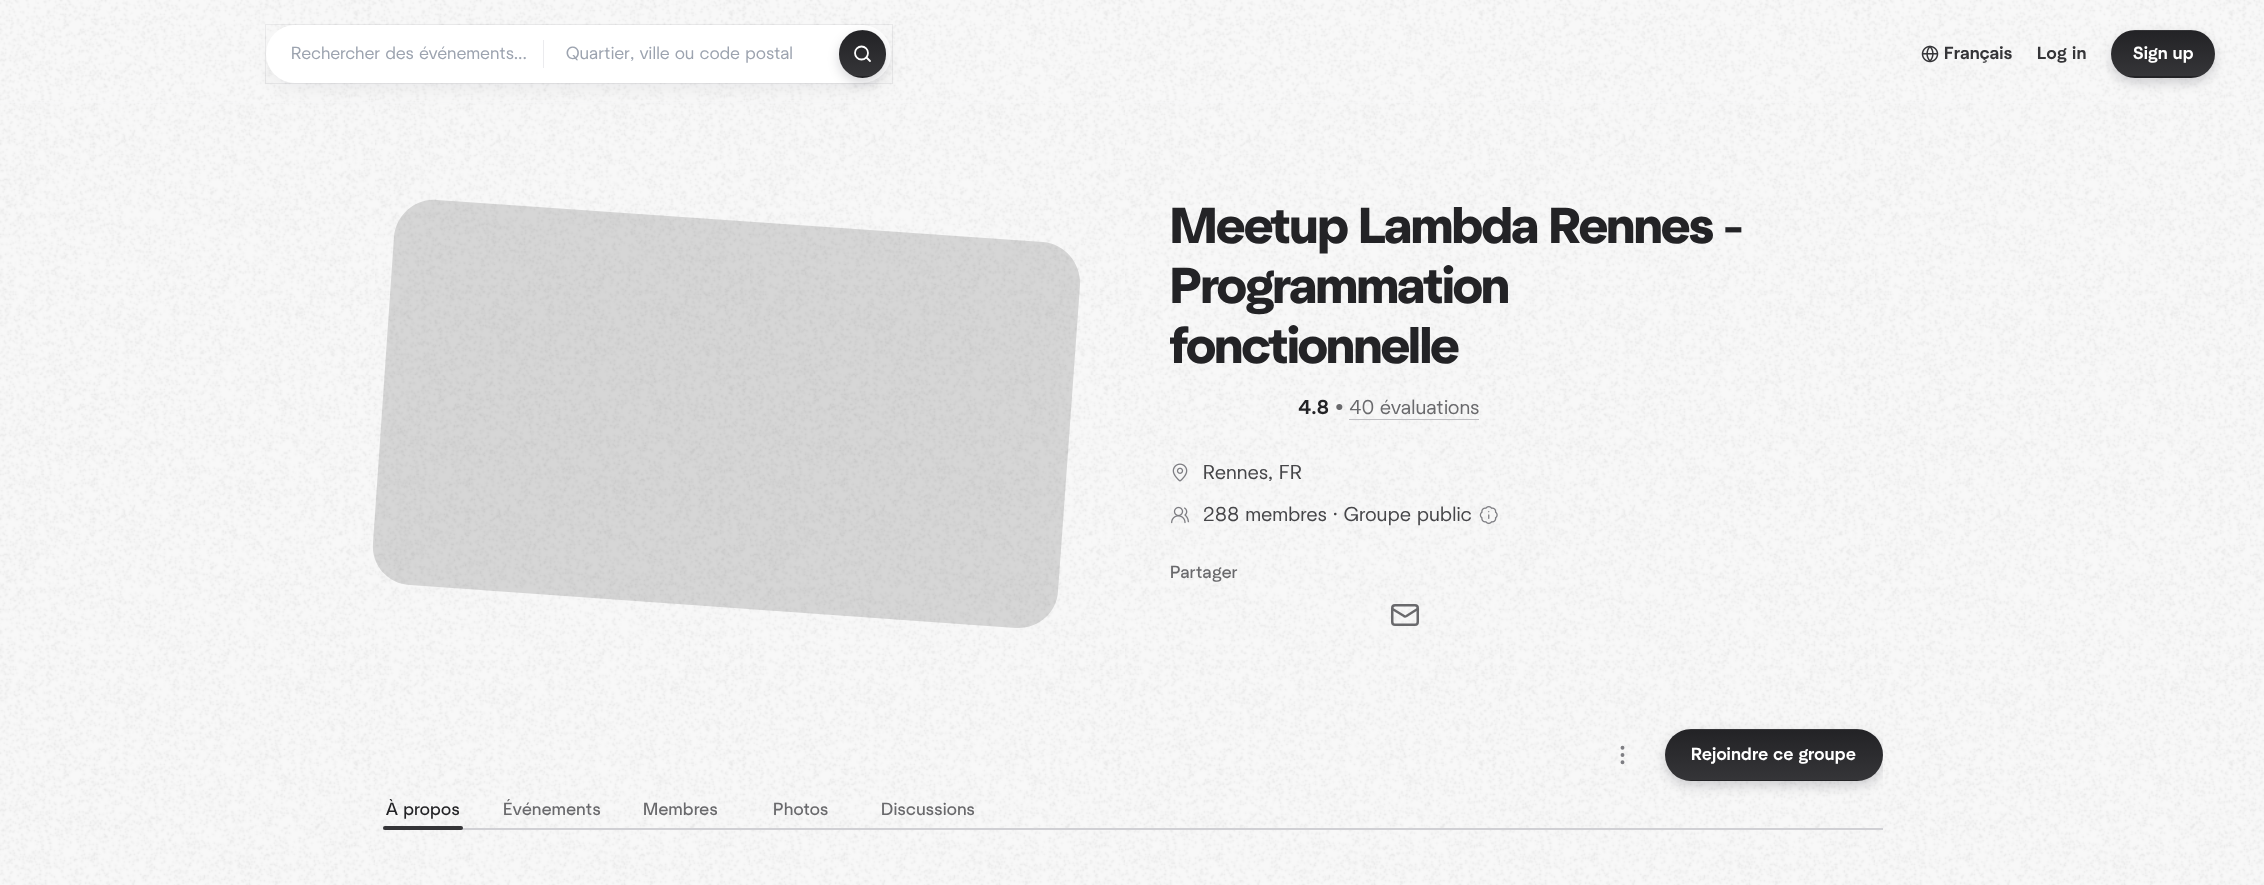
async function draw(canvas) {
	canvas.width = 2264;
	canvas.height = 885;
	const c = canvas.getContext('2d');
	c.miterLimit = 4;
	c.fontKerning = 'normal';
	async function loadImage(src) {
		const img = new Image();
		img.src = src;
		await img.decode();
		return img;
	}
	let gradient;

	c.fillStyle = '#fff';
	c.fillRect(0, 0, 2264, 885);
	c.drawImage(await loadImage('img1.png'), 0, 103, 2264, 782);
	c.fillStyle = '#f7f7f8';
	c.fillRect(0, 102, 2264, 1);
	c.drawImage(await loadImage('img2.png'), 0, 0, 2264, 103);
	c.strokeStyle = '#0000100f';
	c.strokeRect(265.5, 24.5, 627, 59);
	c.fillStyle = '#0000100f';
	c.filter = 'blur(10px)';
	c.beginPath();
	c.roundRect(271, 40, 615, 48, 24);
	c.fill();
	c.filter = 'none';
	c.fillStyle = '#fff';
	c.beginPath();
	c.roundRect(266, 25, 625, 58, 29);
	c.fill();
	c.fillStyle = '#ebebee';
	c.fillRect(543, 40, 1, 28);
	c.letterSpacing = '0.35px';
	c.font = '17.5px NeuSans';
	c.fillStyle = '#9ca3af';
	c.fillText('Rechercher des événements...', 291, 59);
	c.fillText('Quartier, ville ou code postal', 566, 59);
	c.fillStyle = '#00001029';
	c.filter = 'blur(6px)';
	c.beginPath();
	c.roundRect(839, 35, 47, 48, 23.5);
	c.fill();
	c.filter = 'none';
	c.save();
	c.beginPath();
	c.roundRect(839, 30, 47, 48, 23.5);
	c.clip();
	gradient = c.createLinearGradient(863, -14, 863, 31);
	gradient.addColorStop(0, '#232326');
	gradient.addColorStop(1, '#353538');
	c.fillStyle = gradient;
	c.fillRect(856, 30, 13, 1);
	gradient = c.createLinearGradient(863, 31, 863, 76);
	gradient.addColorStop(0, '#232326');
	gradient.addColorStop(1, '#353538');
	c.fillStyle = gradient;
	c.fillRect(839, 31, 47, 45);
	gradient = c.createLinearGradient(863, 76, 863, 121);
	gradient.addColorStop(0, '#232326');
	gradient.addColorStop(1, '#353538');
	c.fillStyle = gradient;
	c.fillRect(853, 76, 19, 2);
	c.restore();
	c.beginPath();
	c.moveTo(870, 61);
	c.lineTo(866.5, 57.5);
	c.strokeStyle = '#fff';
	c.lineWidth = 1.8;
	c.lineCap = 'round';
	c.lineJoin = 'round';
	c.stroke();
	c.beginPath();
	c.arc(861.5, 53, 6.5, 0, 2 * Math.PI);
	c.stroke();
	c.drawImage(await loadImage('img3.png'), 1921, 45, 18, 18);
	c.font = '500 17.5px NeuSans';
	c.fillStyle = '#353538';
	c.fillText('Français', 1944, 59);
	c.fillText('Log in', 2037, 59);
	c.fillStyle = '#00001029';
	c.filter = 'blur(6px)';
	c.beginPath();
	c.roundRect(2111, 35, 104, 48, 24);
	c.fill();
	c.filter = 'none';
	c.save();
	c.beginPath();
	c.roundRect(2111, 30, 104, 48, 24);
	c.clip();
	gradient = c.createLinearGradient(2163, -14, 2163, 31);
	gradient.addColorStop(0, '#232326');
	gradient.addColorStop(1, '#353538');
	c.fillStyle = gradient;
	c.fillRect(2128, 30, 70, 1);
	gradient = c.createLinearGradient(2163, 31, 2163, 76);
	gradient.addColorStop(0, '#232326');
	gradient.addColorStop(1, '#353538');
	c.fillStyle = gradient;
	c.fillRect(2111, 31, 104, 45);
	gradient = c.createLinearGradient(2163, 76, 2163, 121);
	gradient.addColorStop(0, '#232326');
	gradient.addColorStop(1, '#353538');
	c.fillStyle = gradient;
	c.fillRect(2125, 76, 76, 2);
	c.restore();
	c.fillStyle = '#fff';
	c.fillText('Sign up', 2133, 59);
	c.fillStyle = '#12121526';
	c.beginPath();
	c.moveTo(437, 200);
	c.lineTo(1043, 242);
	c.bezierCurveTo(1065, 244, 1081, 263, 1080, 285);
	c.lineTo(1058, 591);
	c.bezierCurveTo(1057, 613, 1038, 629, 1016, 628);
	c.lineTo(410, 585);
	c.bezierCurveTo(388, 584, 371, 565, 373, 543);
	c.lineTo(394, 237);
	c.bezierCurveTo(396, 215, 415, 198, 437, 200);
	c.closePath();
	c.fill();
	c.letterSpacing = '-1px';
	c.font = 'bold 50px NeuSans';
	c.fillStyle = '#232326';
	for (const [text, x, y] of [
		['Meetup Lambda Rennes -', 1170, 243],
		['Programmation', 1170, 303],
		['fonctionnelle', 1170, 363],
	]) {
		c.fillText(text, x, y);
	}
	c.letterSpacing = '0.4px';
	c.font = '500 20px NeuSans';
	c.fillText('4.8', 1298, 414);
	c.font = '20px NeuSans';
	c.fillStyle = '#69696c';
	c.fillText('•', 1335, 414);
	c.fillText('40 évaluations', 1349, 414);
	c.fillStyle = '#bebec2';
	c.fillRect(1349, 419, 130, 1);
	c.drawImage(await loadImage('img4.png'), 1172, 463, 16, 19);
	c.fillStyle = '#464649';
	c.fillText('Rennes, FR', 1203, 479);
	c.drawImage(await loadImage('img5.png'), 1171, 506, 18, 18);
	c.fillText('288 membres · Groupe public', 1203, 521);
	c.drawImage(await loadImage('img6.png'), 1479, 506, 19, 18);
	c.letterSpacing = '0.35px';
	c.font = '17.5px "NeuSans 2"';
	c.fillStyle = '#69696c';
	c.fillText('Partager', 1170, 578);
	c.beginPath();
	c.moveTo(1417.5, 609);
	c.lineTo(1406.5, 616);
	c.bezierCurveTo(1405.5, 616.5, 1404.5, 616.5, 1404, 616);
	c.lineTo(1392.5, 609);
	c.strokeStyle = '#69696c';
	c.lineWidth = 2.5;
	c.stroke();
	c.beginPath();
	c.roundRect(1392.25, 605.25, 25.5, 19.5, 2.75);
	c.lineJoin = 'miter';
	c.stroke();
	c.beginPath();
	c.arc(1622.5, 755, 1, 0, 2 * Math.PI);
	c.strokeStyle = '#7d7d82';
	c.lineWidth = 1.9;
	c.stroke();
	c.beginPath();
	c.arc(1622.5, 747.7, 1, 0, 2 * Math.PI);
	c.stroke();
	c.beginPath();
	c.arc(1622.5, 762.3, 1, 0, 2 * Math.PI);
	c.stroke();
	c.save();
	c.beginPath();
	c.rect(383, 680, 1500, 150);
	c.clip();
	c.fillStyle = '#00001029';
	c.filter = 'blur(6px)';
	c.beginPath();
	c.roundRect(1665, 734, 218, 52, 26);
	c.fill();
	c.filter = 'none';
	c.restore();
	c.save();
	c.beginPath();
	c.roundRect(1665, 729, 218, 52, 26);
	c.clip();
	gradient = c.createLinearGradient(1774, 680, 1774, 730);
	gradient.addColorStop(0, '#232326');
	gradient.addColorStop(1, '#353538');
	c.fillStyle = gradient;
	c.fillRect(1684, 729, 180, 1);
	gradient = c.createLinearGradient(1774, 730, 1774, 780);
	gradient.addColorStop(0, '#232326');
	gradient.addColorStop(1, '#353538');
	c.fillStyle = gradient;
	c.fillRect(1665, 730, 218, 50);
	gradient = c.createLinearGradient(1774, 780, 1774, 830);
	gradient.addColorStop(0, '#232326');
	gradient.addColorStop(1, '#353538');
	c.fillStyle = gradient;
	c.fillRect(1684, 780, 180, 1);
	c.restore();
	c.font = '500 17.5px NeuSans';
	c.fillStyle = '#fff';
	c.fillText('Rejoindre ce groupe', 1691, 760);
	c.font = '17.5px "NeuSans 2"';
	c.fillStyle = '#232326';
	c.fillText('À propos', 386, 815);
	c.fillStyle = '#69696c';
	for (const [text, x, y] of [
		['Événements', 503, 815],
		['Membres', 643, 815],
		['Photos', 773, 815],
		['Discussions', 881, 815],
	]) {
		c.fillText(text, x, y);
	}
	c.fillStyle = '#d0d0d4';
	c.fillRect(383, 828, 1500, 2);
	c.fillStyle = '#353538';
	c.beginPath();
	c.roundRect(383, 826, 80, 4, 2);
	c.fill();
}

draw(document.querySelector('canvas'));
